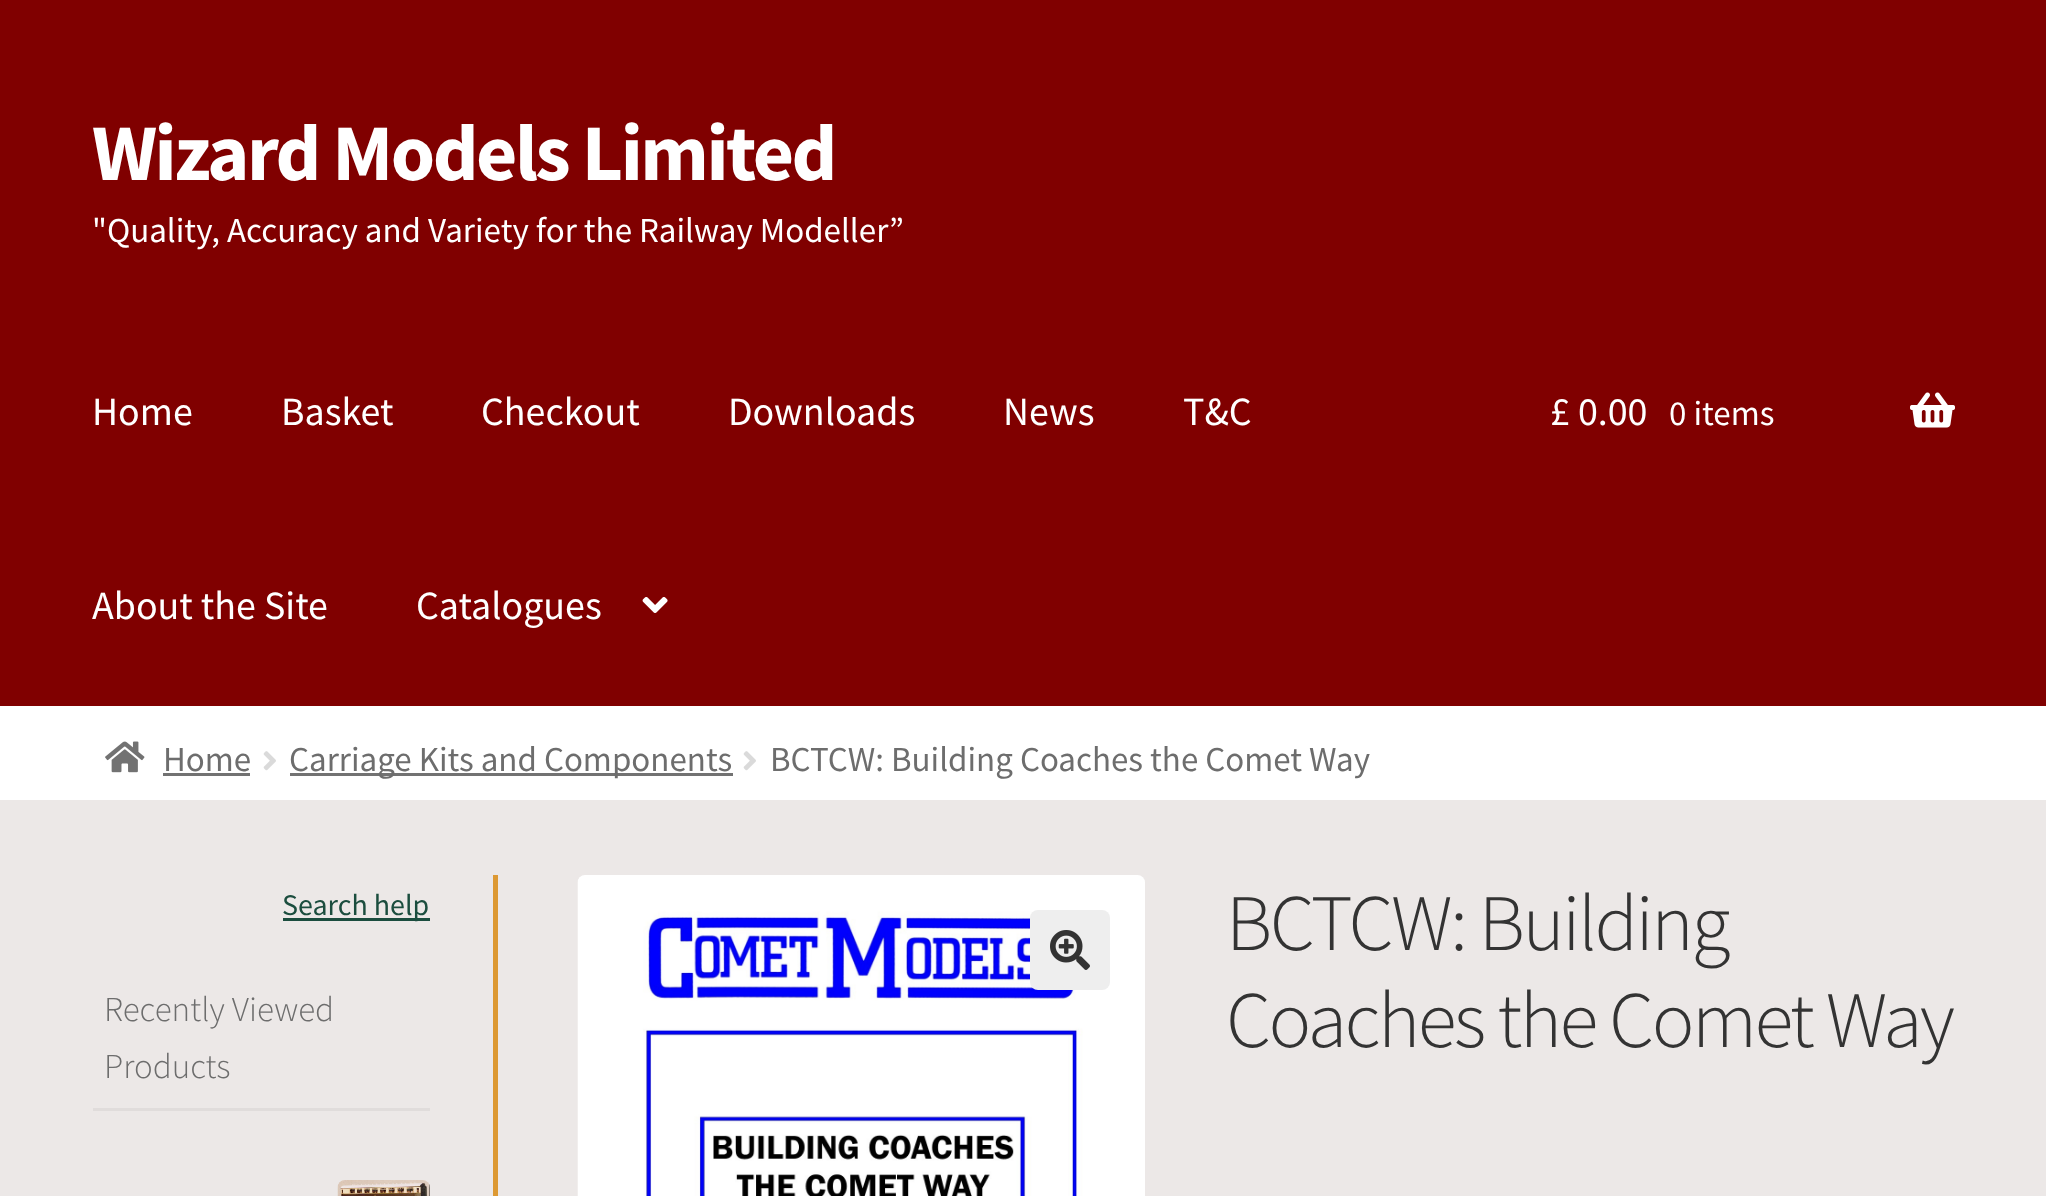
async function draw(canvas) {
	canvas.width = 2046;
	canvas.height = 1196;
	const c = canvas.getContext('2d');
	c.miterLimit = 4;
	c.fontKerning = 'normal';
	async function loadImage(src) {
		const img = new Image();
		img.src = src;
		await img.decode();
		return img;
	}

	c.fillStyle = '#fff';
	c.fillRect(0, 0, 2046, 1196);
	c.fillStyle = '#800000';
	c.fillRect(0, 0, 2046, 706);
	c.letterSpacing = '-2.5px';
	c.font = 'bold 80px Source Sans Pro';
	c.fillStyle = '#fff';
	c.fillText('Wizard Models Limited', 92, 180);
	c.letterSpacing = '0px';
	c.font = '35px Source Sans Pro';
	c.fillText('"Quality, Accuracy and Variety for the Railway Modeller”', 92, 242);
	c.font = '40px Source Sans Pro';
	for (const [text, x, y] of [
		['Home', 92, 425],
		['Basket', 281, 425],
		['Checkout', 481, 425],
		['Downloads', 728, 425],
		['News', 1003, 425],
		['T&C', 1183, 425],
		['About the Site', 92, 619],
		['Catalogues', 416, 619],
	]) {
		c.fillText(text, x, y);
	}
	c.drawImage(await loadImage('img1.png'), 642, 597, 26, 16);
	c.fillText('£ 0.00', 1550, 425);
	c.font = '35px Source Sans Pro';
	c.fillText('0 items', 1669, 425);
	c.drawImage(await loadImage('img2.png'), 1910, 392, 45, 36);
	c.drawImage(await loadImage('img3.png'), 105, 741, 40, 32);
	c.fillStyle = '#6d6d6d';
	c.fillText('Home', 163, 771);
	c.fillStyle = '#727272';
	c.fillRect(163, 773, 87, 3);
	c.drawImage(await loadImage('img4.png'), 263, 751, 13, 20);
	c.fillRect(290, 773, 443, 3);
	c.fillStyle = '#6d6d6d';
	c.fillText('Carriage Kits and Components', 289, 771);
	c.drawImage(await loadImage('img4.png'), 743, 751, 13, 20);
	c.fillText('BCTCW: Building Coaches the Comet Way', 770, 771);
	for (const [x, y, w, h, color] of [
		[0, 800, 2046, 396, '#ece8e7'],
		[493, 875, 5, 321, '#d93'],
		[283, 918, 147, 3, '#1b4d3e'],
	]) {
		c.fillStyle = color;
		c.fillRect(x, y, w, h);
	}
	c.font = '30px Source Sans Pro';
	c.fillText('Search help', 282, 915);
	c.fillStyle = '#e0dcdb';
	c.fillRect(93, 1108, 337, 3);
	c.font = '300 35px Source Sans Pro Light';
	c.fillStyle = '#6d6d6d';
	c.fillText('Recently Viewed', 104, 1021);
	c.fillText('Products', 104, 1078);
	c.drawImage(await loadImage('img5.png'), 337, 1180, 93, 16);
	c.drawImage(await loadImage('img6.png'), 577, 875, 568, 321);
	c.fillStyle = '#eee';
	c.beginPath();
	c.roundRect(1030, 910, 80, 80, 8);
	c.fill();
	c.drawImage(await loadImage('img7.png'), 1050, 930, 40, 40);
	c.letterSpacing = '-2.5px';
	c.font = '300 80px Source Sans Pro Light';
	c.fillStyle = '#333';
	c.fillText('BCTCW: Building', 1226, 950);
	c.fillText('Coaches the Comet Way', 1226, 1047);
}

draw(document.querySelector('canvas'));
